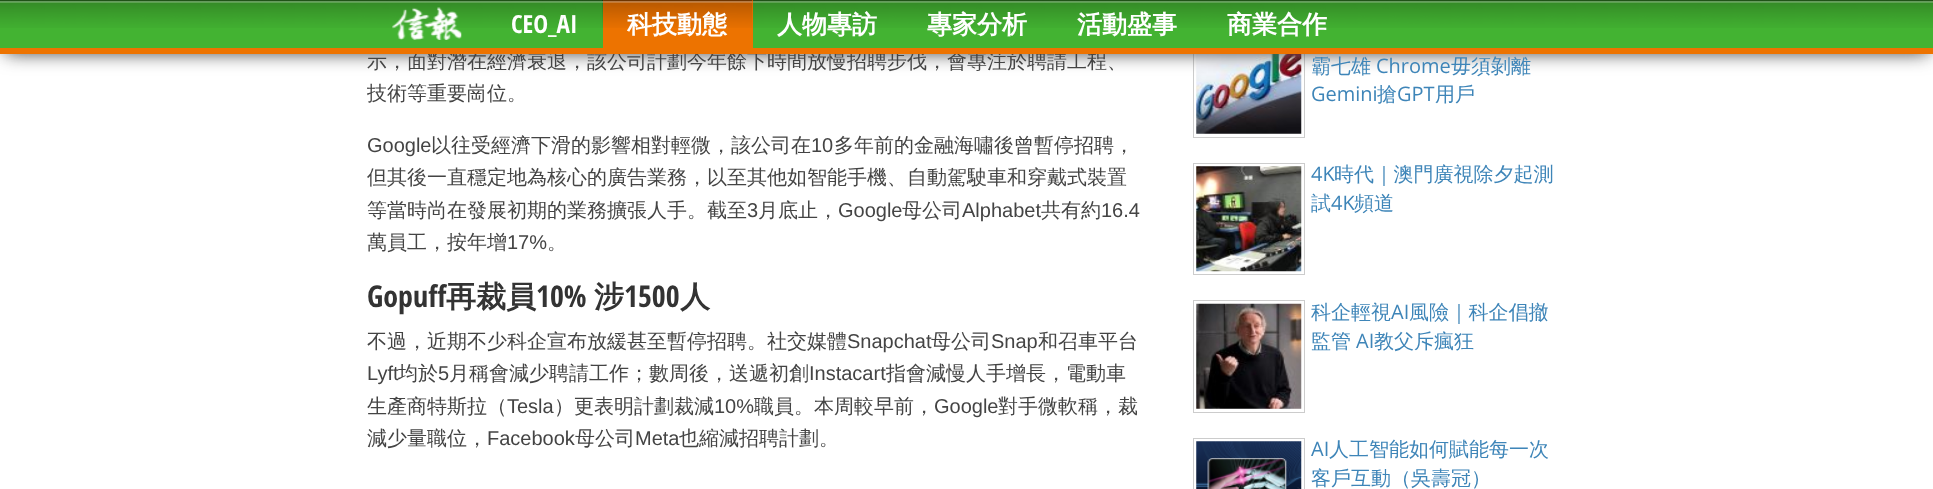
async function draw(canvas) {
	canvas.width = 1933;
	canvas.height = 489;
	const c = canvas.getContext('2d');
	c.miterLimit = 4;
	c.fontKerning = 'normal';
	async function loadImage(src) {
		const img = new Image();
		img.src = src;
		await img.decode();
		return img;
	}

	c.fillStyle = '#fff';
	c.fillRect(0, 0, 1933, 489);
	c.strokeStyle = '#ccc';
	c.strokeRect(1193.5, 25.5, 111, 112);
	c.drawImage(await loadImage('img4.png'), 1196, 54, 106, 80);
	c.fillStyle = '#555';
	c.filter = 'blur(9.5px)';
	c.beginPath();
	c.rect(6, 11, 1922, 42);
	c.fill();
	c.filter = 'none';
	c.filter = 'blur(9.5px)';
	c.beginPath();
	c.rect(6, 1, 1922, 42);
	c.fill();
	c.filter = 'none';
	c.fillStyle = '#43b332';
	c.fillRect(0, 0, 1933, 48);
	c.drawImage(await loadImage('img1.png'), 0, 0, 1933, 28);
	c.font = '500 20px WenQuanYi Zen Hei';
	c.fillStyle = '#444';
	c.fillText('示，面對潛在經濟衰退，該公司計劃今年餘下時間放慢招聘步伐，會專注於聘請工程、', 367, 68);
	c.fillStyle = '#ed7300';
	c.fillRect(0, 48, 1933, 6);
	c.drawImage(await loadImage('img2.png'), 392, 7, 70, 33);
	c.font = 'bold 25px Open Sans Condensed';
	c.fillStyle = '#fff';
	c.fillText('CEO_AI', 511, 33);
	c.fillStyle = '#ed7300';
	c.fillRect(603, 0, 150, 48);
	c.drawImage(await loadImage('img3.png'), 602, 0, 151, 28);
	c.font = 'bold 25px WenQuanYi Zen Hei';
	c.fillStyle = '#fff';
	for (const [text, x, y] of [
		['科技動態', 627, 33],
		['人物專訪', 777, 33],
		['專家分析', 927, 33],
		['活動盛事', 1077, 33],
		['商業合作', 1227, 33],
	]) {
		c.fillText(text, x, y);
	}
	c.font = '500 20px WenQuanYi Zen Hei';
	c.fillStyle = '#444';
	c.fillText('技術等重要崗位。', 367, 100);
	c.font = '20px Liberation Sans';
	c.fillText('Google', 367, 152);
	c.font = '500 20px WenQuanYi Zen Hei';
	c.fillText('以往受經濟下滑的影響相對輕微，該公司在', 431, 152);
	c.font = '20px Liberation Sans';
	c.fillText('10', 811, 152);
	c.font = '500 20px WenQuanYi Zen Hei';
	for (const [text, x, y] of [
		['多年前的金融海嘯後曾暫停招聘，', 834, 152],
		['但其後一直穩定地為核心的廣告業務，以至其他如智能手機、自動駕駛車和穿戴式裝置', 367, 184],
		['等當時尚在發展初期的業務擴張人手。截至', 367, 217],
	]) {
		c.fillText(text, x, y);
	}
	c.font = '20px Liberation Sans';
	c.fillText('3', 747, 217);
	c.font = '500 20px WenQuanYi Zen Hei';
	c.fillText('月底止，', 758, 217);
	c.font = '20px Liberation Sans';
	c.fillText('Google', 838, 217);
	c.font = '500 20px WenQuanYi Zen Hei';
	c.fillText('母公司', 902, 217);
	c.font = '20px Liberation Sans';
	c.fillText('Alphabet', 962, 217);
	c.font = '500 20px WenQuanYi Zen Hei';
	c.fillText('共有約', 1041, 217);
	c.font = '20px Liberation Sans';
	c.fillText('16.4', 1101, 217);
	c.font = '500 20px WenQuanYi Zen Hei';
	c.fillText('萬員工，按年增', 367, 249);
	c.font = '20px Liberation Sans';
	c.fillText('17%', 507, 249);
	c.font = '500 20px WenQuanYi Zen Hei';
	c.fillText('。', 547, 249);
	c.font = 'bold 30px Open Sans Condensed';
	c.fillStyle = '#333';
	c.fillText('Gopuff', 367, 307);
	c.font = 'bold 30px WenQuanYi Zen Hei';
	c.fillText('再裁員', 446, 307);
	c.font = 'bold 30px Open Sans Condensed';
	c.fillText('10%', 536, 307);
	c.font = 'bold 30px WenQuanYi Zen Hei';
	c.fillText('涉', 594, 307);
	c.font = 'bold 30px Open Sans Condensed';
	c.fillText('1500', 624, 307);
	c.font = 'bold 30px WenQuanYi Zen Hei';
	c.fillText('人', 680, 307);
	c.font = '500 20px WenQuanYi Zen Hei';
	c.fillStyle = '#444';
	c.fillText('不過，近期不少科企宣布放緩甚至暫停招聘。社交媒體', 367, 348);
	c.font = '20px Liberation Sans';
	c.fillText('Snapchat', 847, 348);
	c.font = '500 20px WenQuanYi Zen Hei';
	c.fillText('母公司', 931, 348);
	c.font = '20px Liberation Sans';
	c.fillText('Snap', 991, 348);
	c.font = '500 20px WenQuanYi Zen Hei';
	c.fillText('和召車平台', 1038, 348);
	c.font = '20px Liberation Sans';
	c.fillText('Lyft', 367, 380);
	c.font = '500 20px WenQuanYi Zen Hei';
	c.fillText('均於', 398, 380);
	c.font = '20px Liberation Sans';
	c.fillText('5', 438, 380);
	c.font = '500 20px WenQuanYi Zen Hei';
	c.fillText('月稱會減少聘請工作；數周後，送遞初創', 449, 380);
	c.font = '20px Liberation Sans';
	c.fillText('Instacart', 809, 380);
	c.font = '500 20px WenQuanYi Zen Hei';
	c.fillText('指會減慢人手增長，電動車', 886, 380);
	c.fillText('生產商特斯拉（', 367, 413);
	c.font = '20px Liberation Sans';
	c.fillText('Tesla', 507, 413);
	c.font = '500 20px WenQuanYi Zen Hei';
	c.fillText('）更表明計劃裁減', 554, 413);
	c.font = '20px Liberation Sans';
	c.fillText('10%', 714, 413);
	c.font = '500 20px WenQuanYi Zen Hei';
	c.fillText('職員。本周較早前，', 754, 413);
	c.font = '20px Liberation Sans';
	c.fillText('Google', 934, 413);
	c.font = '500 20px WenQuanYi Zen Hei';
	c.fillText('對手微軟稱，裁', 998, 413);
	c.fillText('減少量職位，', 367, 445);
	c.font = '20px Liberation Sans';
	c.fillText('Facebook', 487, 445);
	c.font = '500 20px WenQuanYi Zen Hei';
	c.fillText('母公司', 575, 445);
	c.font = '20px Liberation Sans';
	c.fillText('Meta', 635, 445);
	c.font = '500 20px WenQuanYi Zen Hei';
	c.fillText('也縮減招聘計劃。', 679, 445);
	c.fillStyle = '#3e85b8';
	c.fillText('霸七雄', 1311, 73);
	c.font = '20px Open Sans';
	c.fillText('Chrome', 1376, 73);
	c.font = '500 20px WenQuanYi Zen Hei';
	c.fillText('毋須剝離', 1451, 73);
	c.font = '20px Open Sans';
	c.fillText('Gemini', 1311, 101);
	c.font = '500 20px WenQuanYi Zen Hei';
	c.fillText('搶', 1377, 101);
	c.font = '20px Open Sans';
	c.fillText('GPT', 1397, 101);
	c.font = '500 20px WenQuanYi Zen Hei';
	c.fillText('用戶', 1435, 101);
	c.strokeRect(1193.5, 163.5, 111, 111);
	c.drawImage(await loadImage('img5.png'), 1196, 166, 106, 106);
	c.font = '20px Open Sans';
	c.fillText('4K', 1311, 181);
	c.font = '500 20px WenQuanYi Zen Hei';
	c.fillText('時代｜澳門廣視除夕起測', 1334, 181);
	c.fillText('試', 1311, 210);
	c.font = '20px Open Sans';
	c.fillText('4K', 1331, 210);
	c.font = '500 20px WenQuanYi Zen Hei';
	c.fillText('頻道', 1354, 210);
	c.strokeRect(1193.5, 300.5, 111, 112);
	c.drawImage(await loadImage('img6.png'), 1196, 303, 106, 106);
	c.fillText('科企輕視', 1311, 319);
	c.font = '20px Open Sans';
	c.fillText('AI', 1391, 319);
	c.font = '500 20px WenQuanYi Zen Hei';
	c.fillText('風險｜科企倡撤', 1409, 319);
	c.fillText('監管', 1311, 348);
	c.font = '20px Open Sans';
	c.fillText('AI', 1356, 348);
	c.font = '500 20px WenQuanYi Zen Hei';
	c.fillText('教父斥瘋狂', 1374, 348);
	c.strokeRect(1193.5, 438.5, 111, 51);
	c.drawImage(await loadImage('img7.png'), 1196, 441, 106, 48);
	c.font = '20px Open Sans';
	c.fillText('AI', 1311, 456);
	c.font = '500 20px WenQuanYi Zen Hei';
	c.fillText('人工智能如何賦能每一次', 1329, 456);
	c.fillText('客戶互動（吳壽冠）', 1311, 485);
}

draw(document.querySelector('canvas'));
